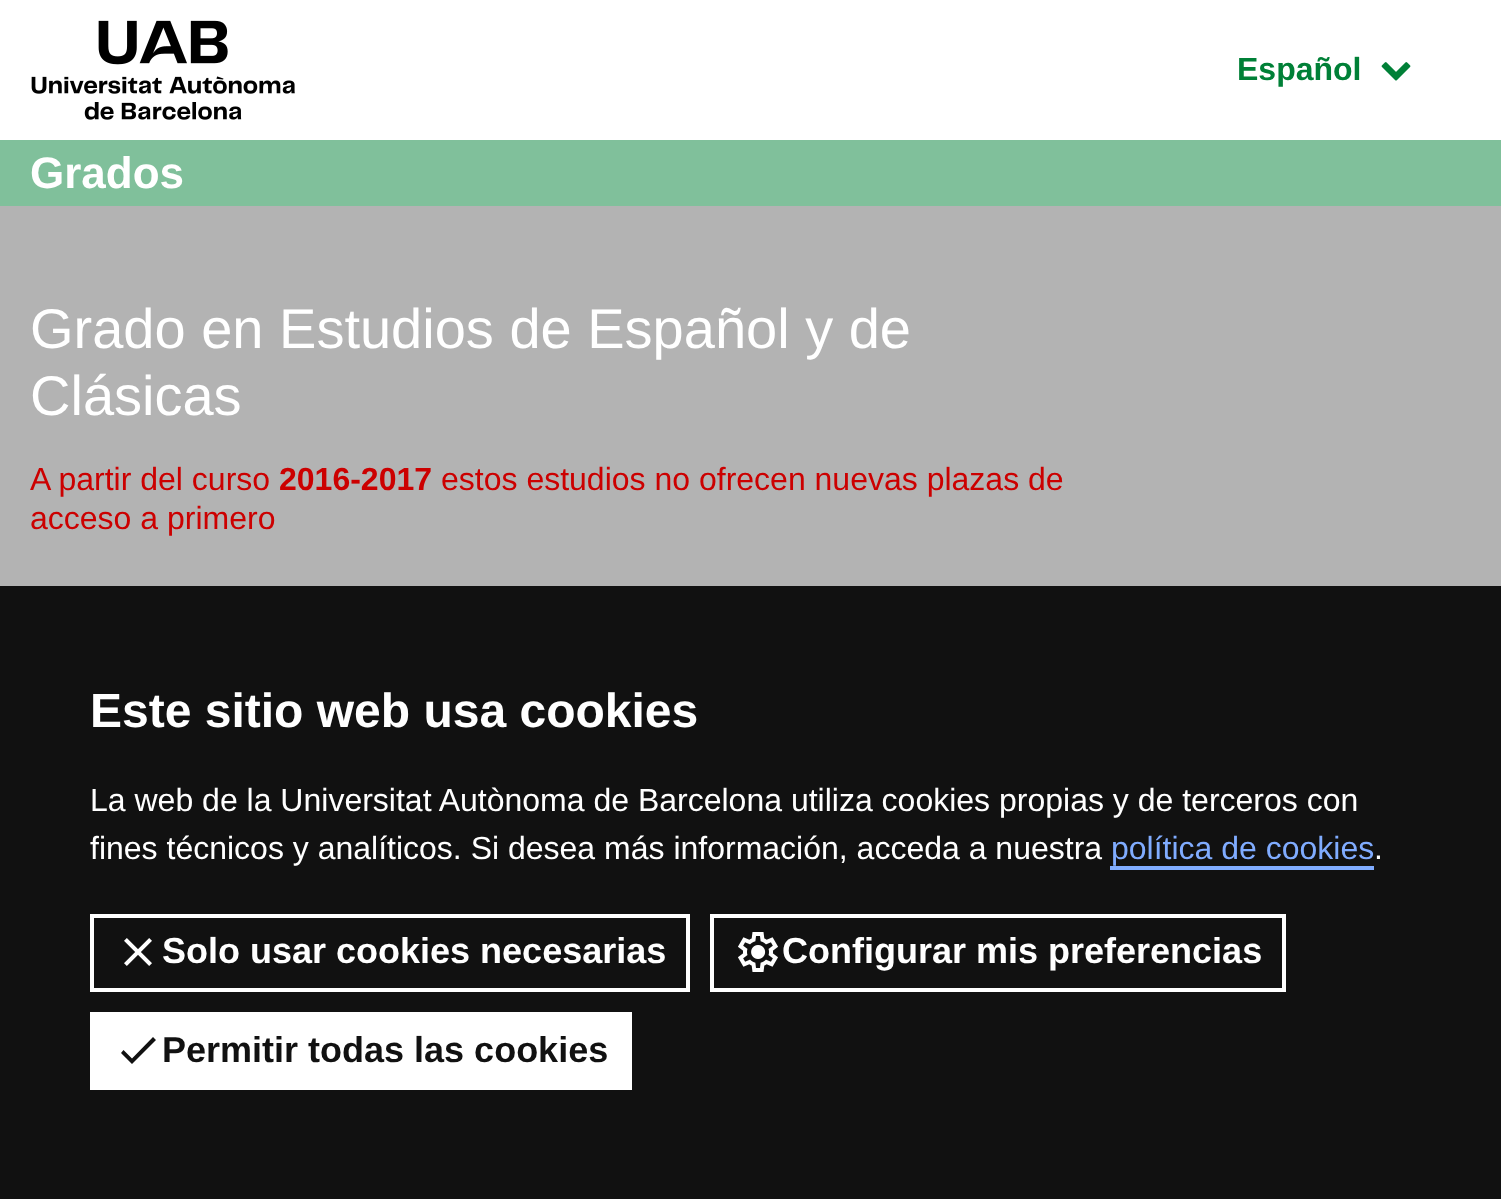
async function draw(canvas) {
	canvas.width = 1501;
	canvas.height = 1199;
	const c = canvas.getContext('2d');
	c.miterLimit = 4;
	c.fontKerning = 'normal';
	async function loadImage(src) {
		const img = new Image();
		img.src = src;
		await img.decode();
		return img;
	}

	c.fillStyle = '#fff';
	c.fillRect(0, 0, 1501, 1199);
	c.drawImage(await loadImage('img1.png'), 31, 20, 264, 100);
	c.font = 'bold 32px Liberation Sans';
	c.fillStyle = '#008037';
	c.fillText('Español', 1237, 80);
	c.drawImage(await loadImage('img2.png'), 1381, 62, 30, 19);
	c.fillStyle = '#80c09b';
	c.fillRect(0, 140, 1501, 66);
	c.font = 'bold 44px Liberation Sans';
	c.fillStyle = '#fff';
	c.fillText('Grados', 30, 188);
	c.fillStyle = '#b3b3b3';
	c.fillRect(0, 206, 1501, 380);
	c.font = '56px Liberation Sans';
	c.fillStyle = '#fff';
	c.fillText('Grado en Estudios de Español y de', 30, 348);
	c.fillText('Clásicas', 30, 415);
	c.font = '32px Liberation Sans';
	c.fillStyle = '#c00';
	c.fillText('A partir del curso', 30, 490);
	c.font = 'bold 32px Liberation Sans';
	c.fillText('2016-2017', 279, 490);
	c.font = '32px Liberation Sans';
	c.fillText('estos estudios no ofrecen nuevas plazas de', 441, 490);
	c.fillText('acceso a primero', 30, 529);
	c.fillStyle = '#111';
	c.fillRect(0, 586, 1501, 613);
	c.font = 'bold 48px Liberation Sans';
	c.fillStyle = '#fff';
	c.fillText('Este sitio web usa cookies', 90, 727);
	c.font = '32px Liberation Sans';
	c.fillText('La web de la Universitat Autònoma de Barcelona utiliza cookies propias y de terceros con', 90, 811);
	c.fillText('fines técnicos y analíticos. Si desea más información, acceda a nuestra', 90, 859);
	c.fillStyle = '#80acff';
	c.fillText('política de cookies', 1111, 859);
	c.fillRect(1110, 866, 264, 4);
	c.fillStyle = '#fff';
	c.fillText('.', 1374, 859);
	c.strokeStyle = '#fff';
	c.lineWidth = 4;
	c.strokeRect(92, 916, 596, 74);
	c.drawImage(await loadImage('img3.png'), 124, 938, 28, 28);
	c.font = 'bold 36px Liberation Sans';
	c.fillText('Solo usar cookies necesarias', 162, 963);
	c.strokeRect(712, 916, 572, 74);
	c.drawImage(await loadImage('img4.png'), 738, 932, 40, 40);
	c.fillText('Configurar mis preferencias', 782, 963);
	c.fillRect(90, 1012, 542, 78);
	c.fillStyle = '#111';
	c.beginPath();
	c.moveTo(132, 1058.5);
	c.lineTo(123.5, 1050);
	c.lineTo(121, 1053);
	c.lineTo(132, 1064);
	c.lineTo(156, 1040);
	c.lineTo(153, 1037);
	c.closePath();
	c.fill();
	c.fillText('Permitir todas las cookies', 162, 1062);
}

draw(document.querySelector('canvas'));
